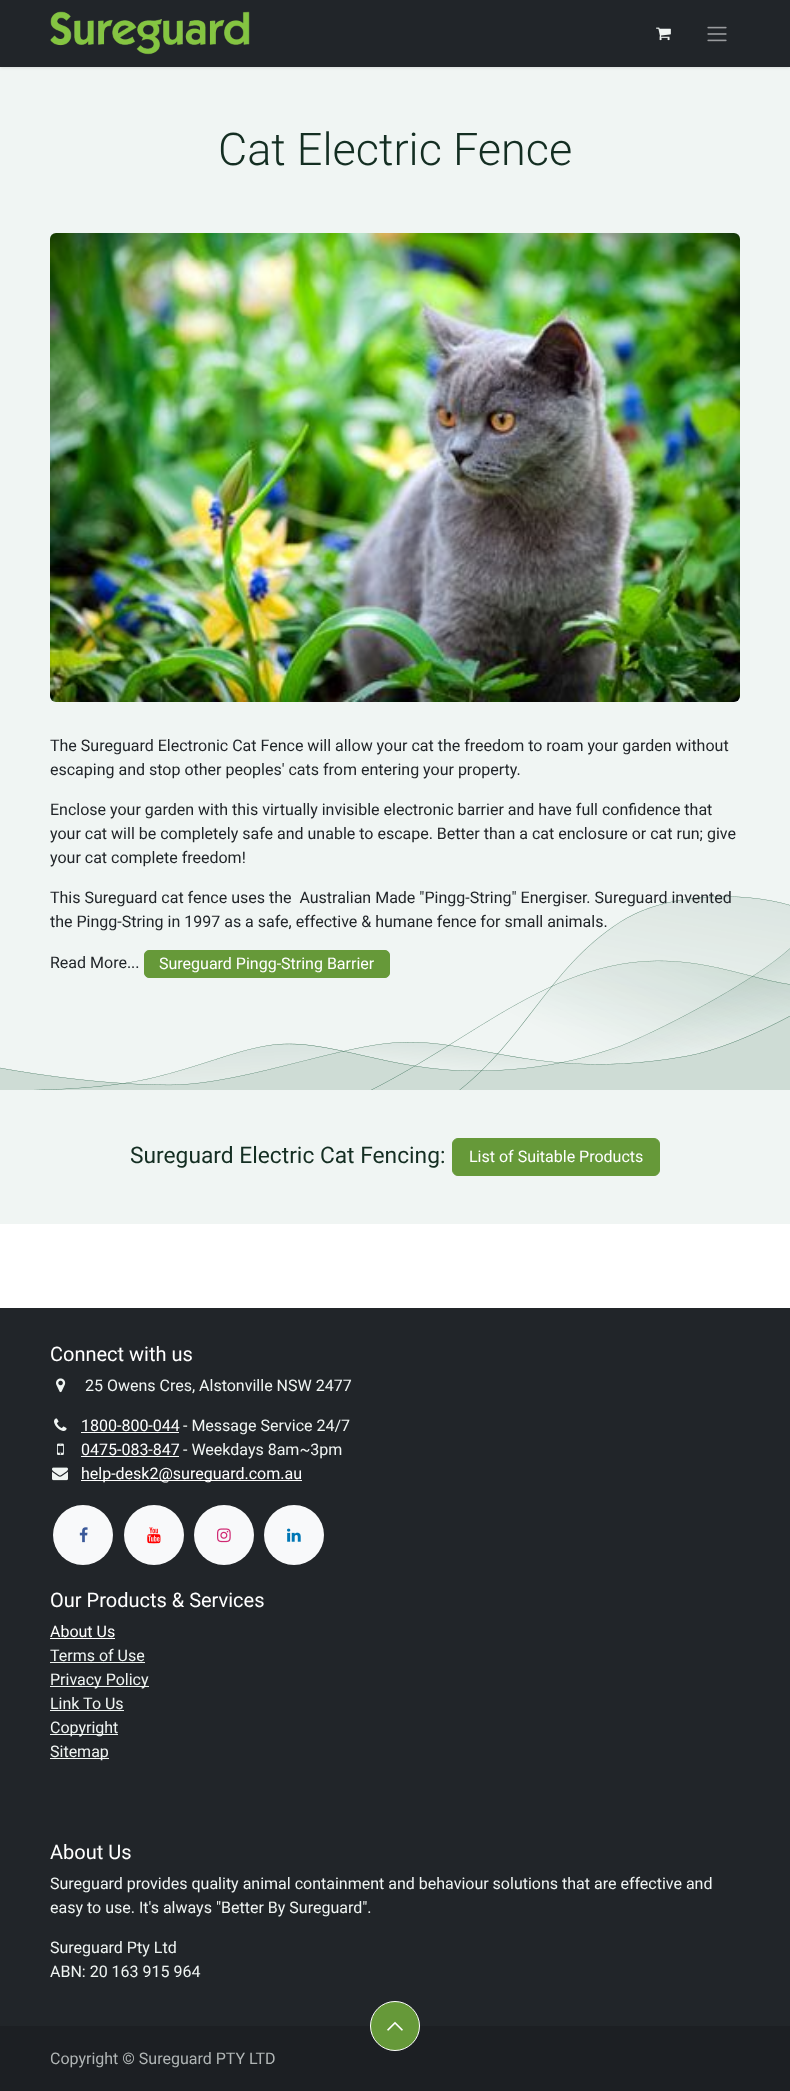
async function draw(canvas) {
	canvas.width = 790;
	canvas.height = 2091;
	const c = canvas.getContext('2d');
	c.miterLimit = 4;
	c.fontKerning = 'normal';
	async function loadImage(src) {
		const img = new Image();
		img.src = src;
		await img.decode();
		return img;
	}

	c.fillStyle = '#fff';
	c.fillRect(0, 0, 790, 2091);
	c.fillStyle = '#f0f5f3';
	c.fillRect(0, 67, 790, 1157);
	c.fillStyle = '#0000001a';
	c.filter = 'blur(1.5px)';
	c.beginPath();
	c.rect(0, 1, 790, 67);
	c.fill();
	c.filter = 'none';
	c.fillStyle = '#212529';
	c.fillRect(0, 0, 790, 67);
	c.drawImage(await loadImage('img1.png'), 50, 11, 200, 44);
	c.drawImage(await loadImage('img2.png'), 656, 27, 15, 14);
	c.drawImage(await loadImage('img3.png'), 707, 26, 20, 16);
	c.font = '300 45px Roboto';
	c.fillStyle = '#142e22';
	c.fillText('Cat Electric Fence', 218, 165);
	c.drawImage(await loadImage('img4.png'), 50, 233, 690, 469);
	c.font = '16px Roboto';
	c.fillStyle = '#212529';
	for (const [text, x, y] of [
		['The Sureguard Electronic Cat Fence will allow your cat the freedom to roam your garden without', 50, 751],
		['escaping and stop other peoples\' cats from entering your property.', 50, 775],
		['Enclose your garden with this virtually invisible electronic barrier and have full confidence that', 50, 815],
		['your cat will be completely safe and unable to escape. Better than a cat enclosure or cat run; give', 50, 839],
		['your cat complete freedom!', 50, 863],
	]) {
		c.fillText(text, x, y);
	}
	c.drawImage(await loadImage('img5.png'), 0, 896, 790, 194);
	for (const [text, x, y] of [
		['This Sureguard cat fence uses the  Australian Made "Pingg-String" Energiser. Sureguard invented', 50, 903],
		['the Pingg-String in 1997 as a safe, effective & humane fence for small animals.', 50, 927],
		['Read More...', 50, 968],
	]) {
		c.fillText(text, x, y);
	}
	c.fillStyle = '#669939';
	c.beginPath();
	c.roundRect(144.5, 950.5, 245, 27, 4.5);
	c.fill();
	c.strokeStyle = '#669939';
	c.stroke();
	c.fillStyle = '#fff';
	c.fillText('Sureguard Pingg-String Barrier', 159, 969);
	c.font = '22.75px Roboto';
	c.fillStyle = '#142e22';
	c.fillText('Sureguard Electric Cat Fencing:', 130, 1163);
	c.fillStyle = '#669939';
	c.beginPath();
	c.roundRect(452.5, 1138.5, 207, 37, 5.5);
	c.fill();
	c.stroke();
	c.font = '16px Roboto';
	c.fillStyle = '#fff';
	c.fillText('List of Suitable Products', 469, 1162);
	c.fillStyle = '#212529';
	c.fillRect(0, 1308, 790, 718);
	c.font = '20px Roboto';
	c.fillStyle = '#fff';
	c.fillText('Connect with us', 50, 1361);
	c.drawImage(await loadImage('img6.png'), 56, 1378, 10, 15);
	c.font = '16px Roboto';
	c.fillStyle = '#f0f5f3';
	c.fillText('25 Owens Cres, Alstonville NSW 2477', 85, 1391);
	c.drawImage(await loadImage('img7.png'), 54, 1418, 13, 13);
	c.fillStyle = '#fff';
	c.fillText('1800-800-044', 81, 1431);
	c.fillRect(81, 1432, 98, 1);
	c.fillStyle = '#f0f5f3';
	c.fillText('- Message Service 24/7', 183, 1431);
	c.drawImage(await loadImage('img8.png'), 57, 1443, 7, 12);
	c.fillStyle = '#fff';
	c.fillText('0475-083-847', 81, 1455);
	c.fillRect(81, 1456, 98, 1);
	c.fillStyle = '#f0f5f3';
	c.fillText('- Weekdays 8am~3pm', 183, 1455);
	c.drawImage(await loadImage('img9.png'), 52, 1467, 16, 14);
	c.fillStyle = '#fff';
	c.fillRect(81, 1480, 221, 1);
	c.fillText('help-desk2@sureguard.com.au', 81, 1479);
	c.fillStyle = '#f8f9fa';
	c.beginPath();
	c.arc(83, 1535, 30, 0, 2 * Math.PI);
	c.fill();
	c.drawImage(await loadImage('img10.png'), 79, 1527, 9, 16);
	c.beginPath();
	c.arc(154, 1535, 30, 0, 2 * Math.PI);
	c.fill();
	c.drawImage(await loadImage('img11.png'), 147, 1527, 14, 17);
	c.beginPath();
	c.arc(224, 1535, 30, 0, 2 * Math.PI);
	c.fill();
	c.drawImage(await loadImage('img12.png'), 217, 1528, 14, 15);
	c.beginPath();
	c.arc(294, 1535, 30, 0, 2 * Math.PI);
	c.fill();
	c.drawImage(await loadImage('img13.png'), 287, 1528, 14, 14);
	c.font = '20px Roboto';
	c.fillStyle = '#fff';
	c.fillText('Our Products & Services', 50, 1607);
	c.font = '16px Roboto';
	c.fillText('About Us', 50, 1637);
	c.fillRect(50, 1638, 65, 1);
	c.fillStyle = '#f0f5f3';
	c.fillText('Terms of Use', 50, 1661);
	c.fillRect(50, 1662, 95, 1);
	c.fillRect(50, 1686, 99, 1);
	c.fillText('Privacy Policy', 50, 1685);
	c.fillText('Link To Us', 50, 1709);
	c.fillRect(50, 1710, 74, 1);
	c.fillRect(50, 1734, 68, 1);
	c.fillText('Copyright', 50, 1733);
	c.fillRect(50, 1758, 59, 1);
	c.fillText('Sitemap', 50, 1757);
	c.font = '20px Roboto';
	c.fillStyle = '#fff';
	c.fillText('About Us', 50, 1859);
	c.font = '16px Roboto';
	c.fillStyle = '#f0f5f3';
	for (const [text, x, y] of [
		['Sureguard provides quality animal containment and behaviour solutions that are effective and', 50, 1889],
		['easy to use. It\'s always "Better By Sureguard".', 50, 1913],
		['Sureguard Pty Ltd', 50, 1953],
		['ABN: 20 163 915 964', 50, 1977],
	]) {
		c.fillText(text, x, y);
	}
	c.fillStyle = '#1c1f23';
	c.fillRect(0, 2026, 790, 65);
	c.fillStyle = '#669939';
	c.beginPath();
	c.arc(395, 2026, 24.5, 0, 2 * Math.PI);
	c.fill();
	c.strokeStyle = '#fff';
	c.stroke();
	c.drawImage(await loadImage('img14.png'), 387, 2021, 16, 10);
	c.fillStyle = '#b0b5b5';
	c.fillText('Copyright © Sureguard PTY LTD', 50, 2064);
}

draw(document.querySelector('canvas'));
